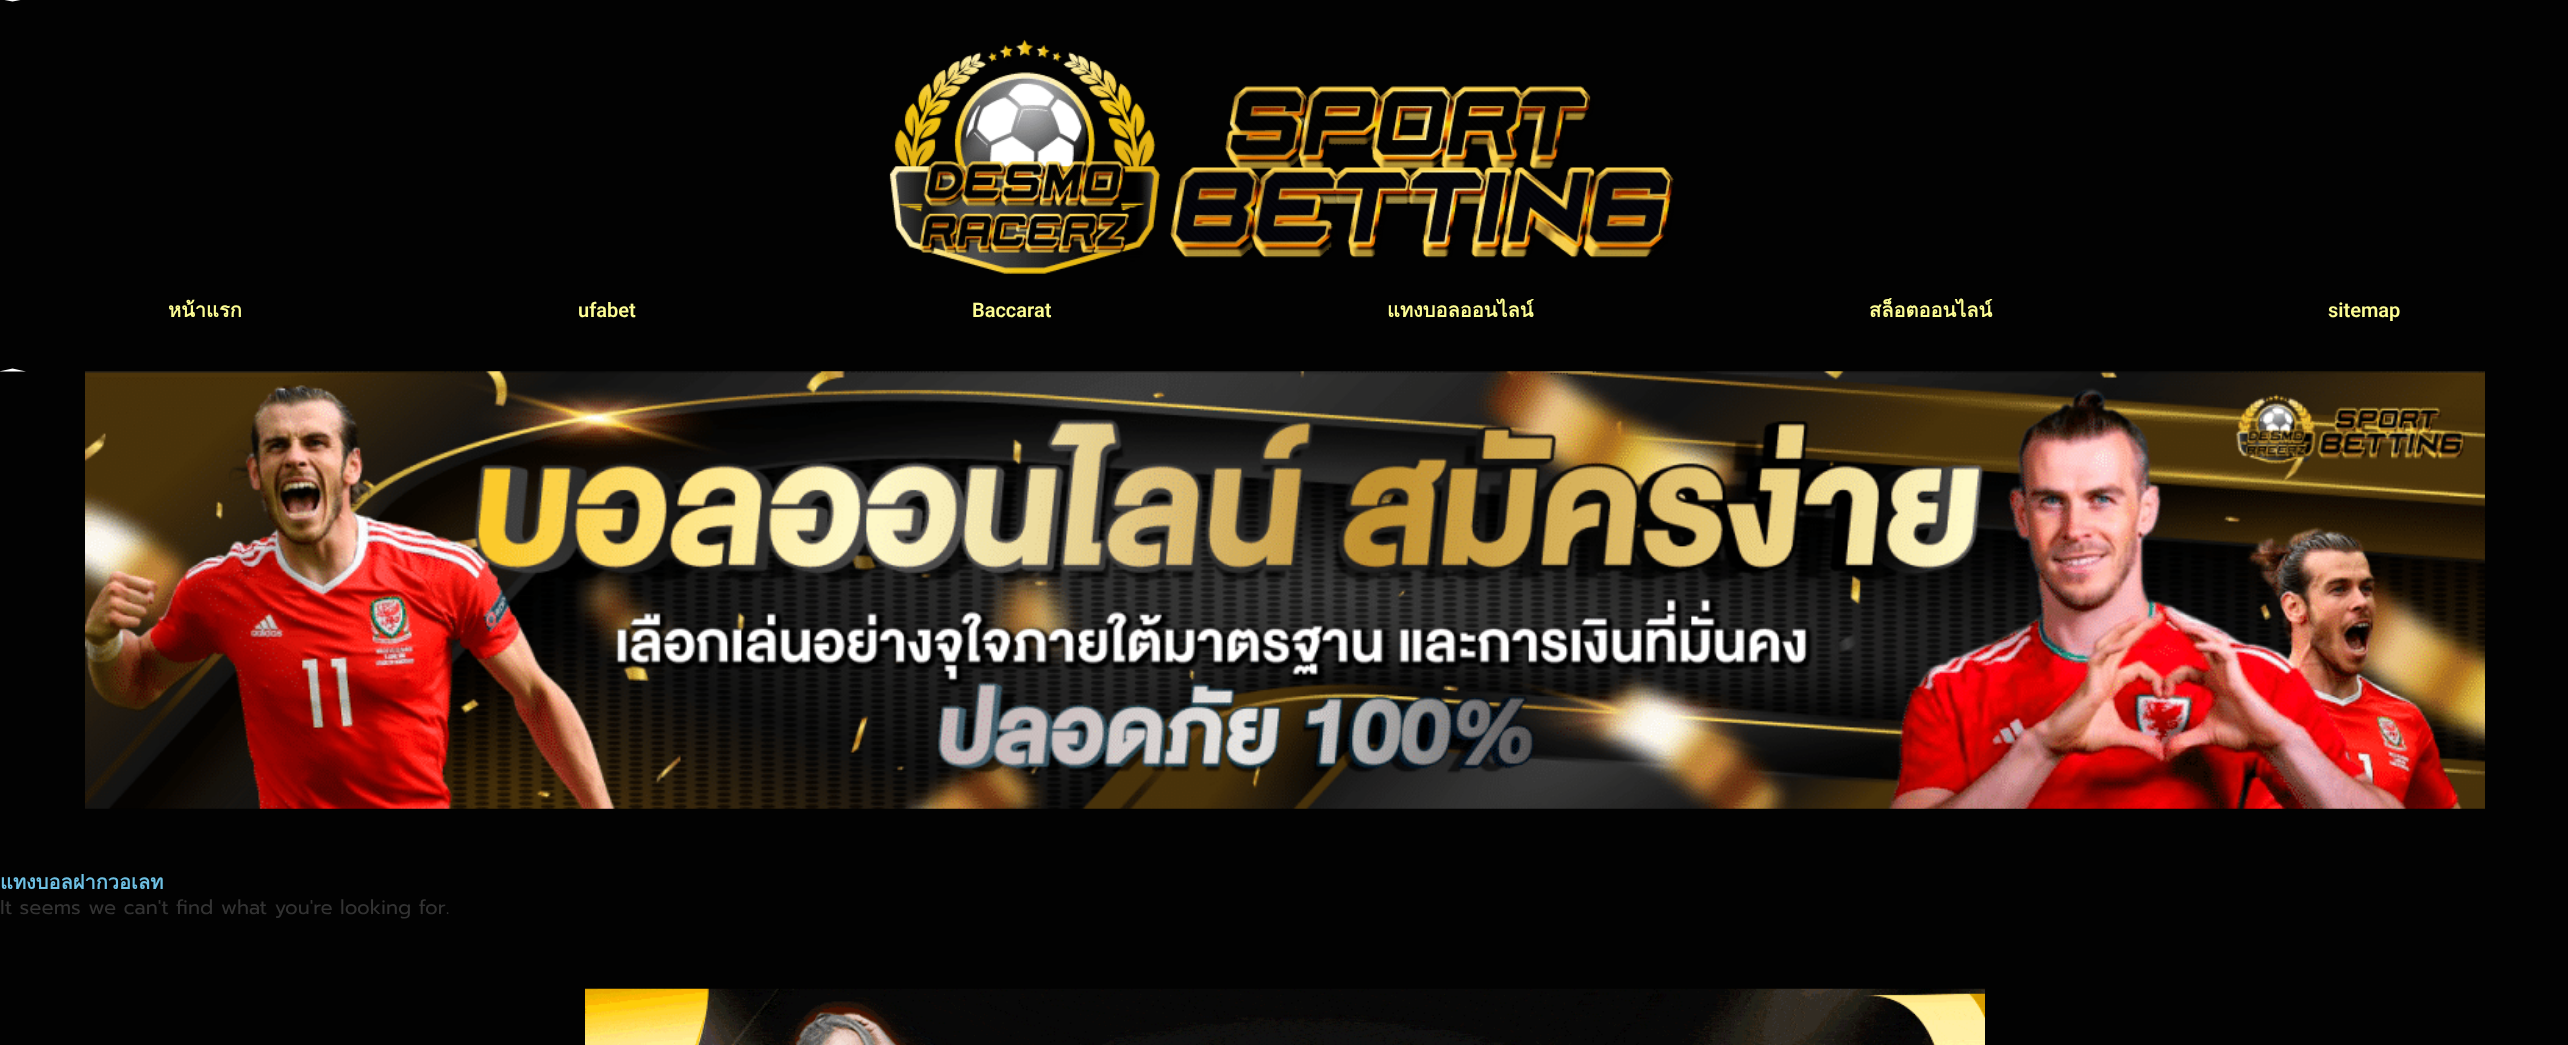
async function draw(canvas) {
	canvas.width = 2568;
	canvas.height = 1045;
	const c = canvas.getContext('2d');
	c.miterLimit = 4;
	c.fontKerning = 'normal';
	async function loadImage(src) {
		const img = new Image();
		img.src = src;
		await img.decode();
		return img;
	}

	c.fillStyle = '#020202';
	c.fillRect(0, 0, 2568, 1045);
	c.fillStyle = '#fff';
	c.beginPath();
	c.moveTo(12.5, 1.5);
	c.lineTo(-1, -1);
	c.lineTo(26, -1);
	c.closePath();
	c.fill();
	c.drawImage(await loadImage('img1.png'), 889, 39, 785, 235);
	c.font = 'bold 20px Loma';
	c.fillStyle = '#fdfd94';
	c.fillText('หน้าแรก', 168, 317);
	c.font = '600 20px Roboto';
	c.fillText('ufabet', 578, 317);
	c.fillText('Baccarat', 972, 317);
	c.font = 'bold 20px Loma';
	c.fillText('แทงบอลออนไลน์', 1387, 317);
	c.fillText('สล็อตออนไลน์', 1869, 317);
	c.font = '600 20px Roboto';
	c.fillText('sitemap', 2328, 317);
	c.fillStyle = '#fff';
	c.beginPath();
	c.moveTo(12.5, 368.5);
	c.lineTo(26, 371.5);
	c.lineTo(-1, 371.5);
	c.closePath();
	c.fill();
	c.drawImage(await loadImage('img2.png'), 85, 371, 2400, 438);
	c.font = 'bold 20px Loma';
	c.fillStyle = '#6ec1e4';
	c.fillText('แทงบอลฝากวอเลท', 0, 889);
	c.font = '20px Prompt';
	c.fillStyle = '#333';
	c.fillText('It seems we can\'t find what you\'re looking for.', 0, 914);
	c.drawImage(await loadImage('img3.png'), 585, 988, 1400, 57);
}

draw(document.querySelector('canvas'));
